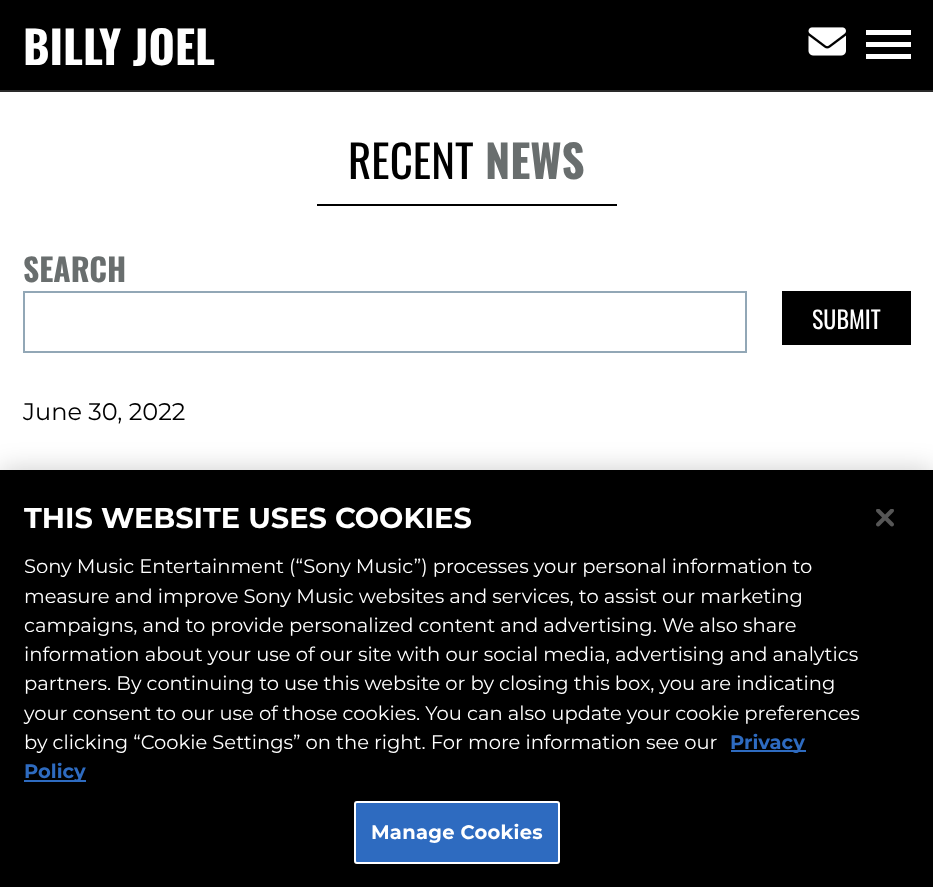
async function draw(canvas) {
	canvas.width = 933;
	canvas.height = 887;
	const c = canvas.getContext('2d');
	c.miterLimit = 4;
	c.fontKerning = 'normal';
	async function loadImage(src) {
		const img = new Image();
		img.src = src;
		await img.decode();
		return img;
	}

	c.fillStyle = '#000';
	c.fillRect(0, 0, 933, 887);
	c.fillStyle = '#2a2a2a';
	c.fillRect(0, 90, 933, 2);
	c.font = 'bold 45px Oswald';
	c.fillStyle = '#fff';
	c.fillText('BILLY JOEL', 23, 65);
	c.drawImage(await loadImage('img1.png'), 808, 27, 38, 29);
	for (const [x, y, w, h, color] of [
		[866, 30, 45, 5, '#fff'],
		[866, 42, 45, 5, '#fff'],
		[866, 54, 45, 5, '#fff'],
		[0, 92, 933, 378, '#fff'],
	]) {
		c.fillStyle = color;
		c.fillRect(x, y, w, h);
	}
	c.font = '45px Oswald';
	c.fillStyle = '#000';
	c.fillText('RECENT', 348, 179);
	c.font = 'bold 45px Oswald';
	c.fillStyle = '#696e6e';
	c.fillText('NEWS', 485, 179);
	c.fillStyle = '#000';
	c.fillRect(317, 204, 300, 2);
	c.font = 'bold 31.5px Oswald';
	c.fillStyle = '#696e6e';
	c.fillText('SEARCH', 23, 282);
	c.strokeStyle = '#92a7b6';
	c.lineWidth = 2;
	c.strokeRect(24, 292, 722, 60);
	c.fillStyle = '#000';
	c.fillRect(782, 291, 129, 54);
	c.font = '24px Oswald';
	c.fillStyle = '#fff';
	c.fillText('SUBMIT', 812, 329);
	c.font = '24px Montserrat';
	c.fillStyle = '#000';
	c.fillText('June 30, 2022', 23, 420);
	c.fillStyle = '#00000033';
	c.filter = 'blur(13.5px)';
	c.beginPath();
	c.rect(0, 470, 933, 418);
	c.fill();
	c.filter = 'none';
	c.font = 'bold 28.75px Montserrat';
	c.fillStyle = '#fff';
	c.fillText('THIS WEBSITE USES COOKIES', 24, 528);
	c.font = '19.5px Montserrat';
	for (const [text, x, y] of [
		['Sony Music Entertainment (“Sony Music”) processes your personal information to', 24, 573],
		['measure and improve Sony Music websites and services, to assist our marketing', 24, 603],
		['campaigns, and to provide personalized content and advertising. We also share', 24, 632],
		['information about your use of our site with our social media, advertising and analytics', 24, 661],
		['partners. By continuing to use this website or by closing this box, you are indicating', 24, 690],
		['your consent to our use of those cookies. You can also update your cookie preferences', 24, 720],
		['by clicking “Cookie Settings” on the right. For more information see our', 24, 749],
	]) {
		c.fillText(text, x, y);
	}
	c.fillStyle = '#2e6bc0';
	c.fillRect(731, 750, 75, 2);
	c.font = 'bold 19.5px Montserrat';
	c.fillText('Privacy', 730, 749);
	c.fillRect(24, 780, 62, 2);
	c.fillText('Policy', 24, 778);
	c.beginPath();
	c.roundRect(355, 802, 204, 61, 2);
	c.fill();
	c.strokeStyle = '#fff';
	c.stroke();
	c.letterSpacing = '0.25px';
	c.fillStyle = '#fff';
	c.fillText('Manage Cookies', 371, 839);
	c.drawImage(await loadImage('img2.png'), 876, 509, 18, 18);
}

draw(document.querySelector('canvas'));
